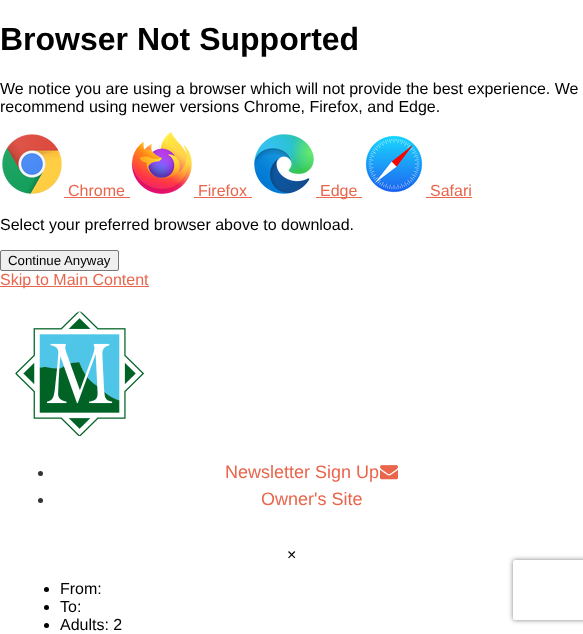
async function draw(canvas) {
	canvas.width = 583;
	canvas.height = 634;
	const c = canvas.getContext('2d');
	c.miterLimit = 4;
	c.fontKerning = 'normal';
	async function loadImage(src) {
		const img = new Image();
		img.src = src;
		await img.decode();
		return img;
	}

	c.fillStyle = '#fff';
	c.fillRect(0, 0, 583, 634);
	c.font = 'bold 32px Liberation Sans';
	c.fillStyle = '#000';
	c.fillText('Browser Not Supported', 0, 50);
	c.font = '16px Liberation Sans';
	c.fillText('We notice you are using a browser which will not provide the best experience. We', 0, 94);
	c.fillText('recommend using newer versions Chrome, Firefox, and Edge.', 0, 112);
	c.drawImage(await loadImage('img1.png'), 2, 134, 60, 60);
	c.fillStyle = '#e9654b';
	c.fillText('Chrome', 68, 196);
	c.fillRect(64, 197, 66, 1);
	c.drawImage(await loadImage('img2.png'), 131, 132, 61, 62);
	c.fillText('Firefox', 198, 196);
	c.fillRect(194, 197, 58, 1);
	c.drawImage(await loadImage('img3.png'), 254, 134, 60, 60);
	c.fillRect(316, 197, 46, 1);
	c.fillText('Edge', 320, 196);
	c.drawImage(await loadImage('img4.png'), 365, 135, 58, 58);
	c.fillText('Safari', 430, 196);
	c.fillRect(426, 197, 46, 1);
	c.fillStyle = '#000';
	c.fillText('Select your preferred browser above to download.', 0, 230);
	c.fillStyle = '#efefef';
	c.beginPath();
	c.roundRect(0.5, 250.5, 118, 20, 1.5);
	c.fill();
	c.strokeStyle = '#767676';
	c.stroke();
	c.font = '13.25px Liberation Sans';
	c.fillStyle = '#000';
	c.fillText('Continue Anyway', 8, 265);
	c.fillStyle = '#e9654b';
	c.fillRect(0, 286, 149, 1);
	c.font = '16px Liberation Sans';
	c.fillText('Skip to Main Content', 0, 285);
	c.drawImage(await loadImage('img5.png'), 15, 311, 130, 125);
	c.fillStyle = '#333';
	c.beginPath();
	c.arc(40.5, 473.5, 2.5, 0, 2 * Math.PI);
	c.fill();
	c.font = '18px Liberation Sans';
	c.fillStyle = '#e9654b';
	c.fillText('Newsletter Sign Up', 225, 478);
	c.drawImage(await loadImage('img6.png'), 380, 465, 18, 15);
	c.fillStyle = '#333';
	c.beginPath();
	c.arc(40.5, 500.5, 2.5, 0, 2 * Math.PI);
	c.fill();
	c.fillStyle = '#e9654b';
	c.fillText('Owner\'s Site', 261, 505);
	c.font = '16px Liberation Sans';
	c.fillStyle = '#000';
	c.fillText('×', 287, 560);
	c.beginPath();
	c.arc(46.5, 589.5, 2.5, 0, 2 * Math.PI);
	c.fill();
	c.fillText('From:', 60, 594);
	c.beginPath();
	c.arc(46.5, 607.5, 2.5, 0, 2 * Math.PI);
	c.fill();
	c.fillText('To:', 60, 612);
	c.beginPath();
	c.arc(46.5, 625.5, 2.5, 0, 2 * Math.PI);
	c.fill();
	c.fillText('Adults: 2', 60, 630);
	c.save();
	c.beginPath();
	c.moveTo(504, 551);
	c.lineTo(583, 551);
	c.lineTo(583, 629);
	c.lineTo(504, 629);
	c.closePath();
	c.moveTo(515, 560);
	c.lineTo(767, 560);
	c.bezierCurveTo(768, 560, 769, 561, 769, 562);
	c.lineTo(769, 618);
	c.bezierCurveTo(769, 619, 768, 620, 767, 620);
	c.lineTo(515, 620);
	c.bezierCurveTo(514, 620, 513, 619, 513, 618);
	c.lineTo(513, 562);
	c.bezierCurveTo(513, 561, 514, 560, 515, 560);
	c.closePath();
	c.clip('evenodd');
	c.fillStyle = '#808080';
	c.filter = 'blur(2.5px)';
	c.beginPath();
	c.roundRect(513, 560, 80, 60, 2);
	c.fill();
	c.filter = 'none';
	c.restore();
}

draw(document.querySelector('canvas'));
